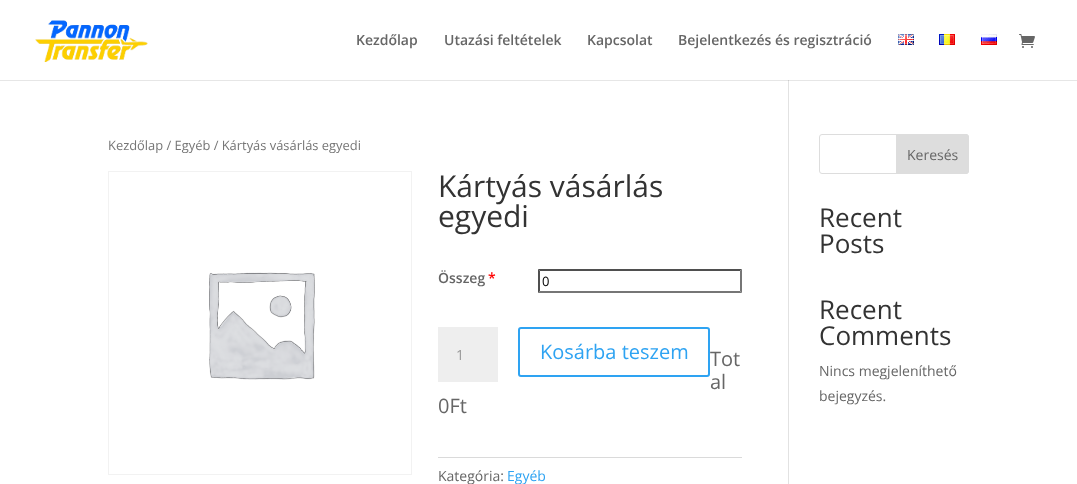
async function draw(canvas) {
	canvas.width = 1077;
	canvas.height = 484;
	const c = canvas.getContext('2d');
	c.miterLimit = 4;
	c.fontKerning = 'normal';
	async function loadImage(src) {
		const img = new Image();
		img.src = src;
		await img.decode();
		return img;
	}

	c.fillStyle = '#fff';
	c.fillRect(0, 0, 1077, 484);
	for (const [x, y, w, h, color] of [
		[0, 80, 1077, 1, '#e6e6e6'],
		[788, 76, 1, 408, '#e2e2e2'],
		[788, 76, 1, 4, '#fff'],
	]) {
		c.fillStyle = color;
		c.fillRect(x, y, w, h);
	}
	c.drawImage(await loadImage('img1.png'), 35, 20, 113, 42);
	c.font = '600 14px Open Sans';
	c.fillStyle = '#666';
	for (const [text, x, y] of [
		['Kezdőlap', 356, 45],
		['Utazási feltételek', 444, 45],
		['Kapcsolat', 587, 45],
		['Bejelentkezés és regisztráció', 678, 45],
	]) {
		c.fillText(text, x, y);
	}
	c.drawImage(await loadImage('img2.png'), 898, 34, 16, 11);
	c.drawImage(await loadImage('img3.png'), 939, 34, 16, 11);
	c.drawImage(await loadImage('img4.png'), 981, 34, 16, 11);
	c.drawImage(await loadImage('img5.png'), 1019, 34, 16, 14);
	c.fillStyle = '#cbcbcb';
	c.fillRect(788, 80, 1, 1);
	c.font = '12.9px Open Sans';
	c.fillStyle = '#767676';
	c.fillText('Kezdőlap / Egyéb / Kártyás vásárlás egyedi', 108, 150);
	c.strokeStyle = '#f2f2f2';
	c.strokeRect(108.5, 171.5, 303, 303);
	c.drawImage(await loadImage('img6.png'), 209, 272, 106, 108);
	c.font = '30px Open Sans';
	c.fillStyle = '#333';
	c.fillText('Kártyás vásárlás', 438, 197);
	c.fillText('egyedi', 438, 227);
	c.font = '600 14px Open Sans';
	c.fillStyle = '#666';
	c.fillText('Összeg', 438, 283);
	c.fillStyle = '#f00';
	c.fillText('*', 488, 283);
	c.fillStyle = '#4f4f4f';
	c.beginPath();
	c.moveTo(538, 269);
	c.lineTo(742, 269);
	c.lineTo(740, 271);
	c.lineTo(540, 271);
	c.closePath();
	c.fill();
	c.fillStyle = '#767676';
	c.beginPath();
	c.moveTo(742, 269);
	c.lineTo(742, 293);
	c.lineTo(740, 291);
	c.lineTo(740, 271);
	c.closePath();
	c.fill();
	c.beginPath();
	c.moveTo(742, 293);
	c.lineTo(538, 293);
	c.lineTo(540, 291);
	c.lineTo(740, 291);
	c.closePath();
	c.fill();
	c.fillStyle = '#4f4f4f';
	c.beginPath();
	c.moveTo(538, 293);
	c.lineTo(538, 269);
	c.lineTo(540, 271);
	c.lineTo(540, 291);
	c.closePath();
	c.fill();
	c.font = '13px Open Sans';
	c.fillStyle = '#000';
	c.fillText('0', 542, 286);
	c.fillStyle = '#eee';
	c.fillRect(438, 327, 60, 55);
	c.font = '14px Open Sans';
	c.fillStyle = '#999';
	c.fillText('1', 456, 360);
	c.beginPath();
	c.roundRect(519, 328, 190, 48, 2);
	c.strokeStyle = '#2ea3f2';
	c.lineWidth = 2;
	c.stroke();
	c.font = '20px Open Sans';
	c.fillStyle = '#2ea3f2';
	c.fillText('Kosárba teszem', 540, 359);
	c.fillStyle = '#666';
	for (const [text, x, y] of [
		['Tot', 710, 366],
		['al', 710, 389],
		['0Ft', 438, 413],
	]) {
		c.fillText(text, x, y);
	}
	c.fillStyle = '#dadada';
	c.fillRect(438, 457, 304, 1);
	c.font = '14px Open Sans';
	c.fillStyle = '#666';
	c.fillText('Kategória:', 438, 481);
	c.fillStyle = '#2ea3f2';
	c.fillText('Egyéb', 507, 481);
	c.beginPath();
	c.roundRect(819.5, 134.5, 149, 39, 2.5);
	c.strokeStyle = '#ddd';
	c.lineWidth = 1;
	c.stroke();
	c.fillStyle = '#ddd';
	c.beginPath();
	c.roundRect(896.5, 134.5, 72, 39, [0, 2.5, 2.5, 0]);
	c.fill();
	c.stroke();
	c.fillStyle = '#666';
	c.fillText('Keresés', 907, 160);
	c.font = '26px Open Sans';
	c.fillStyle = '#333';
	for (const [text, x, y] of [
		['Recent', 819, 227],
		['Posts', 819, 253],
		['Recent', 819, 319],
		['Comments', 819, 345],
	]) {
		c.fillText(text, x, y);
	}
	c.font = '14px Open Sans';
	c.fillStyle = '#666';
	c.fillText('Nincs megjeleníthető', 819, 376);
	c.fillText('bejegyzés.', 819, 401);
}

draw(document.querySelector('canvas'));
